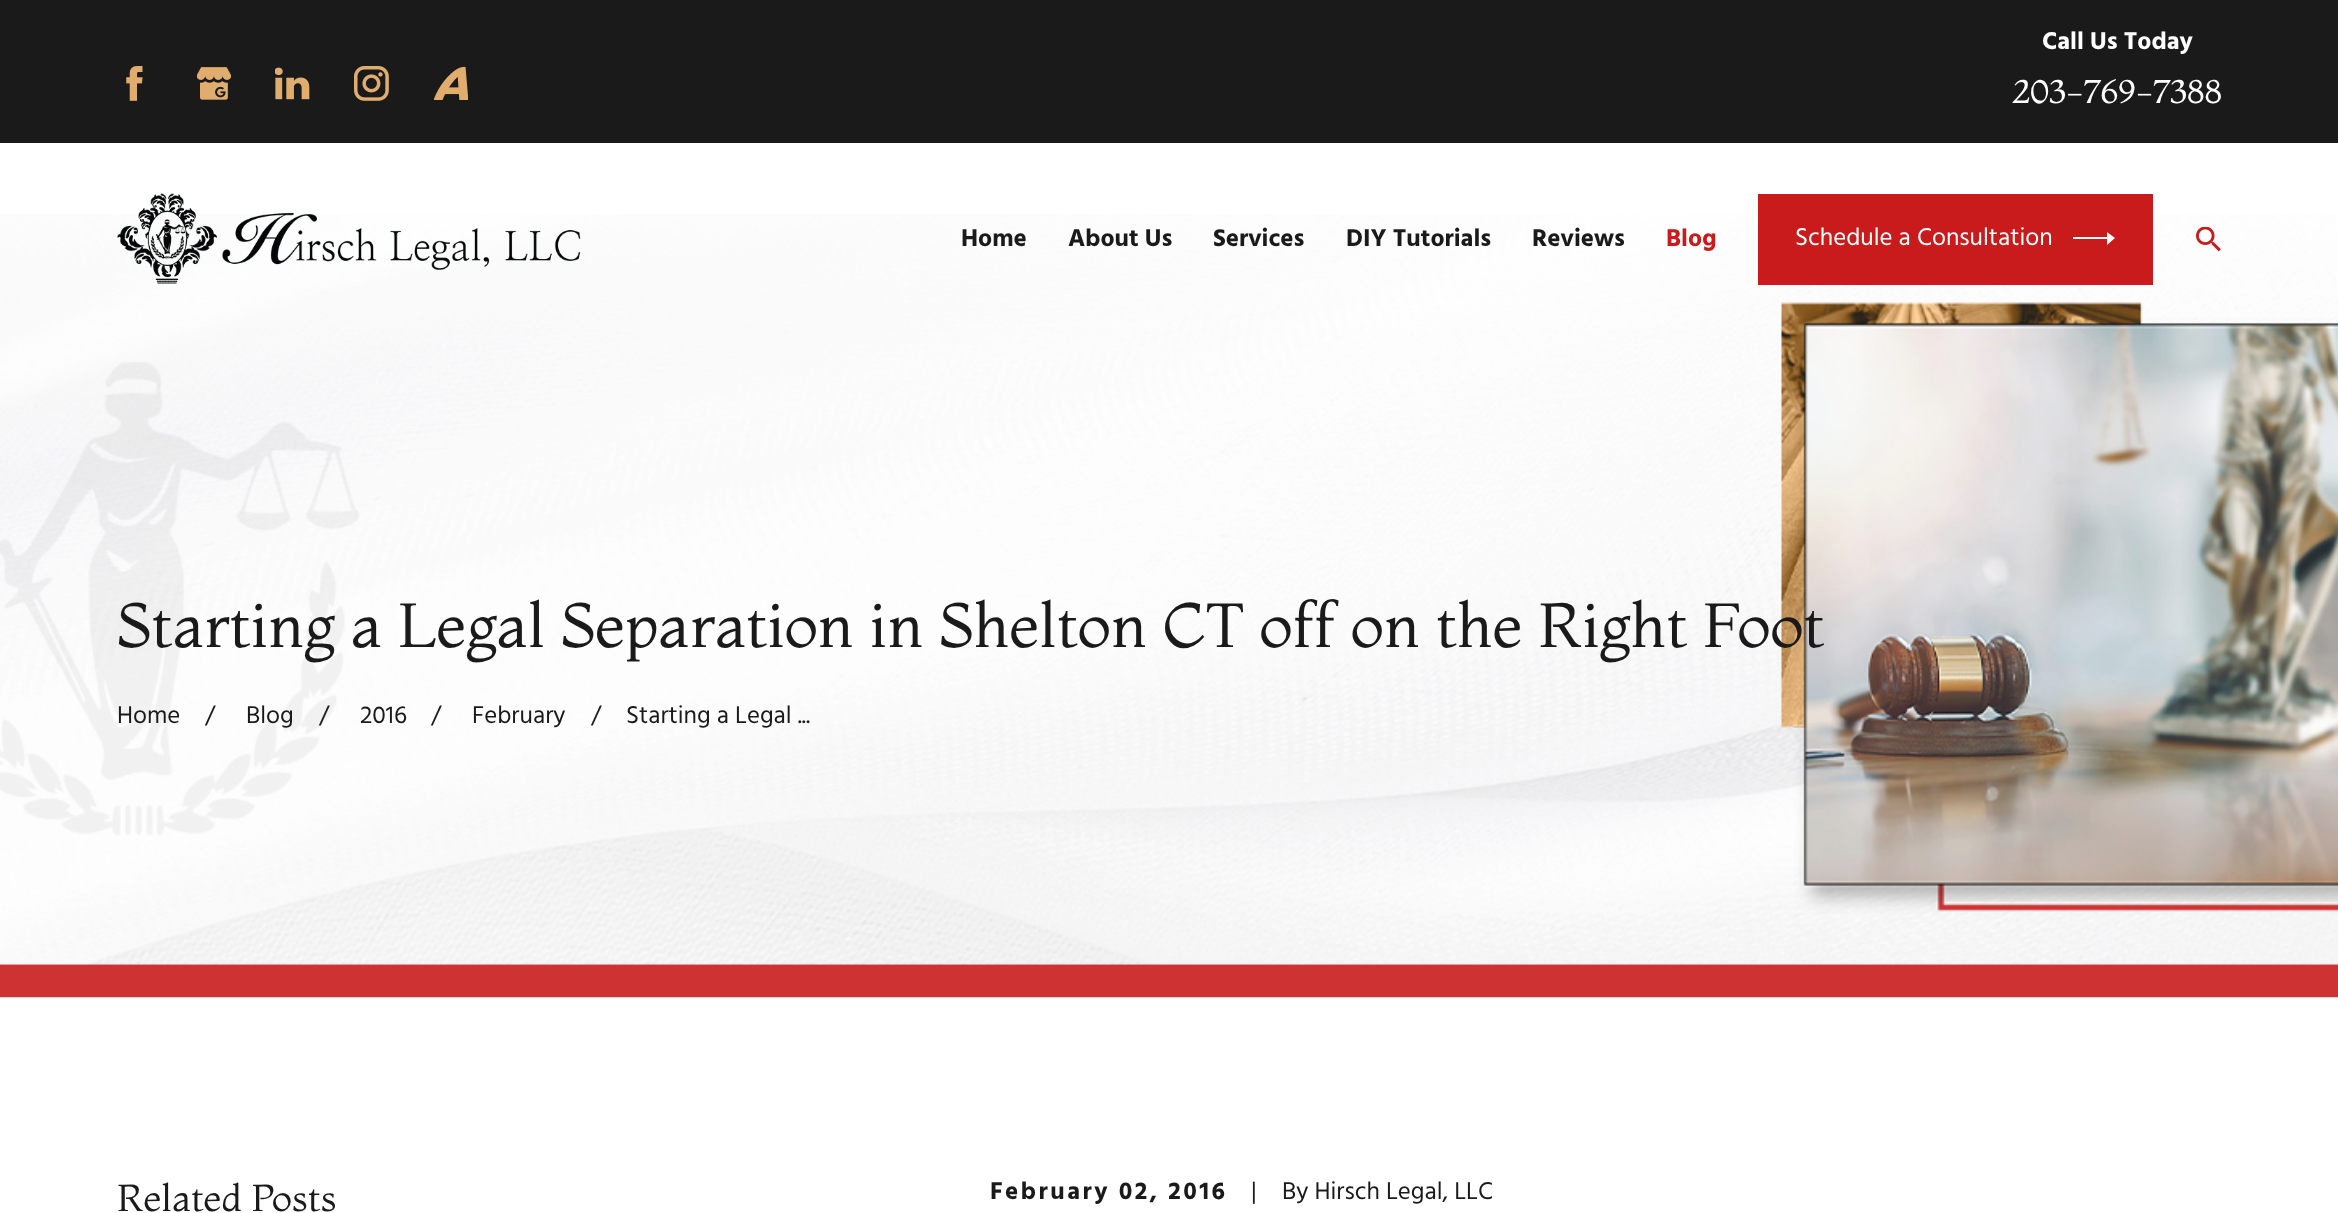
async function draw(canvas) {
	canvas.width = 2338;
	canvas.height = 1213;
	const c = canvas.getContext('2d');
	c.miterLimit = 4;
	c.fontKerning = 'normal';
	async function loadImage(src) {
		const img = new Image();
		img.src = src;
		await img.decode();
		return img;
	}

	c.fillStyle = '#fff';
	c.fillRect(0, 0, 2338, 1213);
	c.fillStyle = '#1a1a1a';
	c.fillRect(0, 0, 2338, 143);
	c.drawImage(await loadImage('img1.png'), 126, 66, 17, 35);
	c.drawImage(await loadImage('img2.png'), 197, 67, 34, 33);
	c.drawImage(await loadImage('img3.png'), 275, 67, 35, 33);
	c.drawImage(await loadImage('img4.png'), 354, 66, 35, 35);
	c.drawImage(await loadImage('img5.png'), 434, 66, 34, 34);
	c.font = 'bold 24.9px Hind';
	c.fillStyle = '#fff';
	c.fillText('Call Us Today', 2042, 49);
	c.font = '33.25px Montaga';
	c.fillText('203-769-7388', 2012, 103);
	c.drawImage(await loadImage('img8.png'), 0, 214, 2338, 784);
	c.drawImage(await loadImage('img6.png'), 117, 193, 464, 91);
	c.font = 'bold 24.9px Hind';
	c.fillStyle = '#1a1a1a';
	for (const [text, x, y] of [
		['Home', 961, 246],
		['About Us', 1068, 246],
		['Services', 1213, 246],
		['DIY Tutorials', 1346, 246],
		['Reviews', 1532, 246],
	]) {
		c.fillText(text, x, y);
	}
	c.fillStyle = '#c91b1b';
	c.fillText('Blog', 1666, 246);
	c.fillRect(1758, 194, 395, 91);
	c.font = '24.9px Hind';
	c.fillStyle = '#fff';
	c.fillText('Schedule a Consultation', 1795, 245);
	c.beginPath();
	c.moveTo(2107, 232);
	c.lineTo(2107, 237);
	c.lineTo(2073, 237);
	c.lineTo(2073, 239);
	c.lineTo(2107, 239);
	c.lineTo(2107, 245);
	c.lineTo(2115, 238);
	c.closePath();
	c.fill();
	c.drawImage(await loadImage('img7.png'), 2196, 227, 25, 25);
	c.font = '62.25px Montaga';
	c.fillStyle = '#1a1a1a';
	c.fillText('Starting a Legal Separation in Shelton CT off on the Right Foot', 117, 647);
	c.font = '24.9px Hind';
	for (const [text, x, y] of [
		['Home', 117, 723],
		['/', 205, 723],
		['Blog', 246, 723],
		['/', 319, 723],
		['2016', 360, 723],
		['/', 431, 723],
		['February', 472, 723],
		['/', 591, 723],
		['Starting a Legal ...', 626, 723],
	]) {
		c.fillText(text, x, y);
	}
	c.font = '37.5px Montaga';
	c.fillText('Related Posts', 117, 1211);
	c.letterSpacing = '2.5px';
	c.font = 'bold 24.9px Hind';
	c.fillText('February 02, 2016', 990, 1199);
	c.letterSpacing = '0px';
	c.font = '24.9px Hind';
	c.fillText('|', 1251, 1199);
	c.fillText('By Hirsch Legal, LLC', 1282, 1199);
}

draw(document.querySelector('canvas'));
